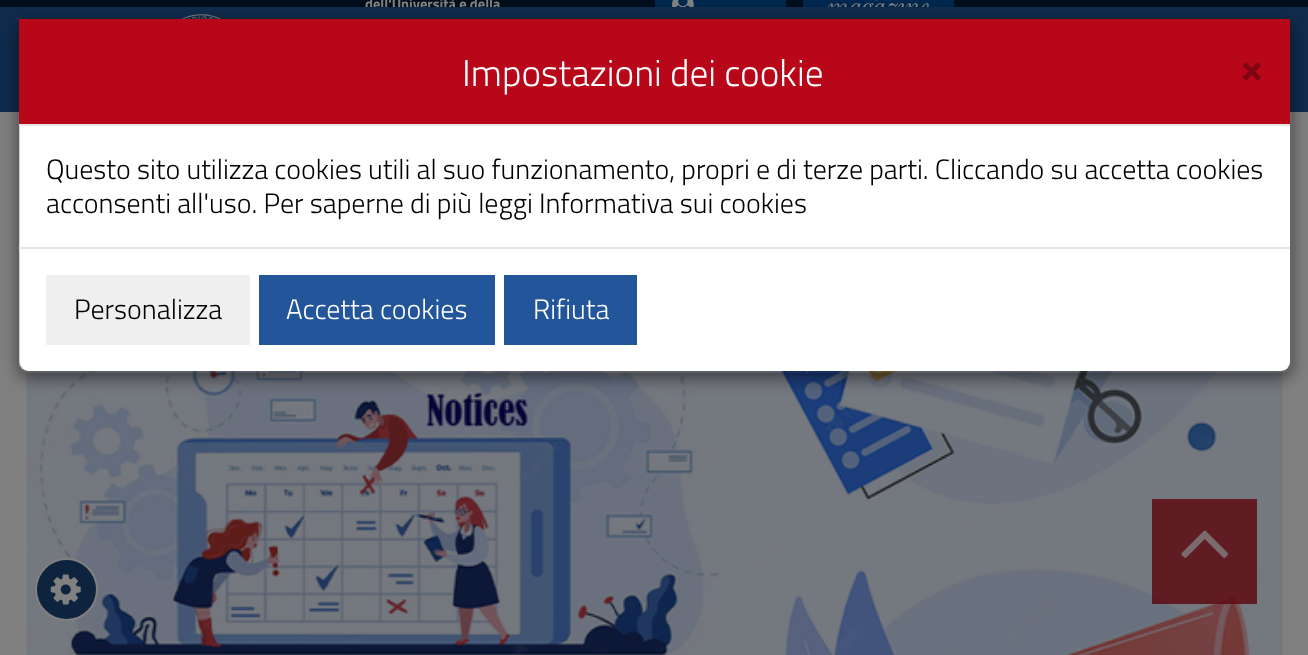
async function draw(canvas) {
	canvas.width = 1308;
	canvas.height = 655;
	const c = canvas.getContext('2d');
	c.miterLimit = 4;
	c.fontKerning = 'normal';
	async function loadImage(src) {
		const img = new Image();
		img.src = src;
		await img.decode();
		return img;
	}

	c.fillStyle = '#808080';
	c.fillRect(0, 0, 1308, 655);
	c.fillStyle = '#112b4d';
	c.fillRect(0, 7, 1308, 105);
	c.fillStyle = '#000d1a';
	c.fillRect(0, 0, 1308, 7);
	c.save();
	c.beginPath();
	c.rect(0, 0, 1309, 7);
	c.clip();
	c.font = 'bold 14.5px Titillium Web';
	c.fillStyle = '#808080';
	c.fillText('dell\'Università e della', 365, 9);
	c.restore();
	c.fillStyle = '#00274d';
	c.fillRect(655, 0, 131, 7);
	c.drawImage(await loadImage('img1.png'), 672, 0, 22, 7);
	c.fillRect(803, 0, 151, 7);
	c.drawImage(await loadImage('img2.png'), 828, 0, 101, 7);
	c.drawImage(await loadImage('img3.png'), 181, 14, 41, 5);
	c.drawImage(await loadImage('img4.png'), 26, 370, 1257, 285);
	c.save();
	c.beginPath();
	c.moveTo(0, 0);
	c.lineTo(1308, 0);
	c.lineTo(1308, 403);
	c.lineTo(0, 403);
	c.closePath();
	c.moveTo(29, 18);
	c.lineTo(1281, 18);
	c.bezierCurveTo(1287, 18, 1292, 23, 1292, 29);
	c.lineTo(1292, 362);
	c.bezierCurveTo(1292, 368, 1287, 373, 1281, 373);
	c.lineTo(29, 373);
	c.bezierCurveTo(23, 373, 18, 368, 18, 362);
	c.lineTo(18, 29);
	c.bezierCurveTo(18, 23, 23, 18, 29, 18);
	c.closePath();
	c.clip('evenodd');
	c.fillStyle = '#00000080';
	c.filter = 'blur(8px)';
	c.beginPath();
	c.roundRect(18, 23, 1274, 355, 11);
	c.fill();
	c.filter = 'none';
	c.restore();
	c.fillStyle = '#fff';
	c.beginPath();
	c.roundRect(19, 19, 1271, 352, 9);
	c.fill();
	c.beginPath();
	c.roundRect(19, 19, 1272, 353, 10);
	c.strokeStyle = '#00000033';
	c.lineWidth = 2;
	c.stroke();
	c.fillStyle = '#b70718';
	c.fillRect(19, 19, 1271, 105);
	c.fillStyle = '#e5e5e5';
	c.fillRect(19, 124, 1271, 2);
	c.font = '300 37.25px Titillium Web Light';
	c.fillStyle = '#fff';
	c.fillText('Impostazioni dei cookie', 462, 86);
	c.font = 'bold 42px Titillium Web';
	c.fillStyle = '#800511';
	c.fillText('×', 1240, 82);
	c.font = '300 28px Titillium Web Light';
	c.fillStyle = '#000';
	c.fillText('Questo sito utilizza cookies utili al suo funzionamento, propri e di terze parti. Cliccando su accetta cookies', 46, 179);
	c.fillText('acconsenti all\'uso. Per saperne di più leggi Informativa sui cookies', 46, 213);
	c.fillStyle = '#e5e5e5';
	c.fillRect(19, 247, 1271, 2);
	c.fillStyle = '#efefef';
	c.fillRect(46, 275, 204, 70);
	c.fillStyle = '#000';
	c.fillText('Personalizza', 74, 319);
	c.fillStyle = '#259';
	c.fillRect(259, 275, 236, 70);
	c.fillStyle = '#fff';
	c.fillText('Accetta cookies', 286, 319);
	c.fillStyle = '#259';
	c.fillRect(504, 275, 133, 70);
	c.fillStyle = '#fff';
	c.fillText('Rifiuta', 533, 319);
	c.fillStyle = '#0e233e';
	c.beginPath();
	c.arc(66.5, 589.5, 30.5, 0, 2 * Math.PI);
	c.fill();
	c.strokeStyle = '#808080';
	c.stroke();
	c.drawImage(await loadImage('img5.png'), 50, 574, 31, 31);
	c.fillStyle = '#5c040ccc';
	c.fillRect(1152, 499, 105, 105);
	c.drawImage(await loadImage('img6.png'), 1181, 530, 48, 28);
}

draw(document.querySelector('canvas'));
